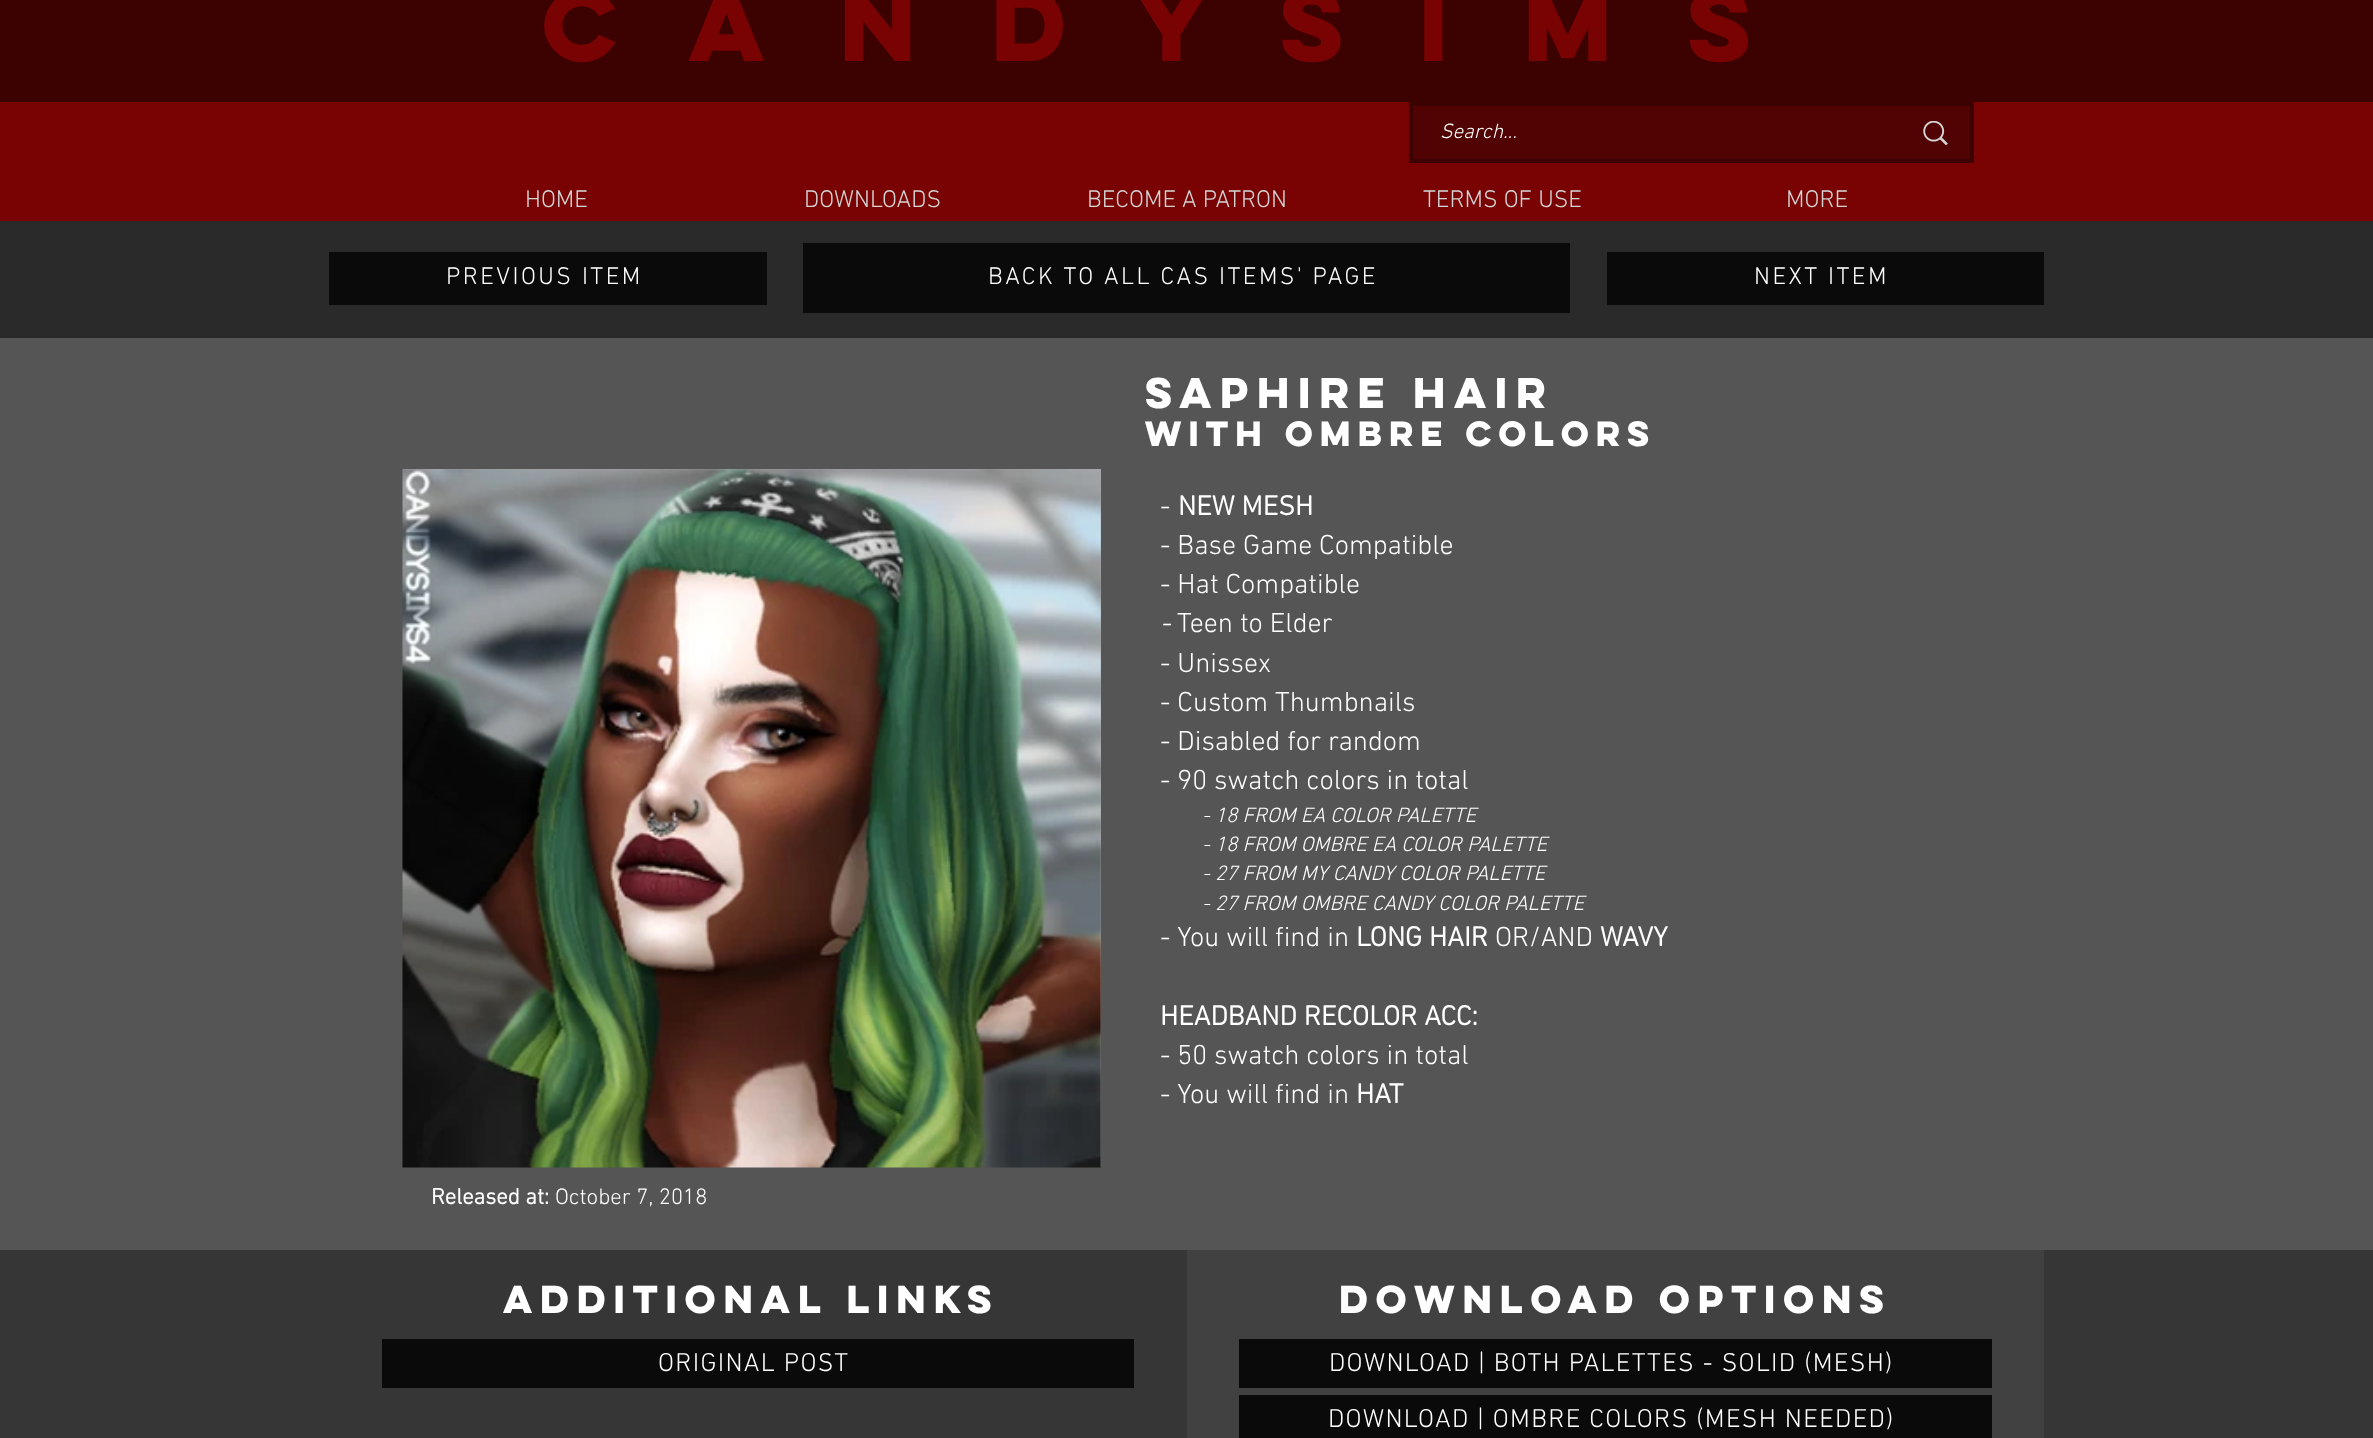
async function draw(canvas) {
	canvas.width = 2373;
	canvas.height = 1438;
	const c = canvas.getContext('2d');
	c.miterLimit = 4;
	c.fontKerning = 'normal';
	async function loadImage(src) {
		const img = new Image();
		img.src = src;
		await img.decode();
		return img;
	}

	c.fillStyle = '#363636';
	c.fillRect(0, 0, 2373, 1438);
	c.fillStyle = '#3c0101';
	c.fillRect(0, 0, 2373, 102);
	c.letterSpacing = '54.5px';
	c.font = 'bold 91px "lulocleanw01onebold"';
	c.fillStyle = '#790303';
	c.fillText('CANDYSIMS', 542, 61);
	c.fillRect(0, 102, 2373, 119);
	c.strokeStyle = '#3c0101';
	c.lineWidth = 4;
	c.strokeRect(1411, 104, 561, 57);
	c.fillStyle = '#3c0101a3';
	c.fillRect(1413, 106, 557, 53);
	c.letterSpacing = '0px';
	c.font = 'italic 300 21px "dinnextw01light"';
	c.fillStyle = '#fff';
	c.fillText('Search...', 1440, 138);
	c.drawImage(await loadImage('img1.png'), 1923, 121, 25, 24);
	c.font = '300 24.5px "dinnextw01light"';
	c.fillStyle = '#d4d4d4';
	for (const [text, x, y] of [
		['HOME', 525, 207],
		['DOWNLOADS', 804, 207],
		['BECOME A PATRON', 1087, 207],
		['TERMS OF USE', 1423, 207],
		['MORE', 1786, 207],
	]) {
		c.fillText(text, x, y);
	}
	c.fillStyle = '#2a2a2a';
	c.fillRect(0, 221, 2373, 117);
	c.fillStyle = '#0a0a0a';
	c.fillRect(329, 252, 438, 53);
	c.letterSpacing = '2.45px';
	c.fillStyle = '#fff';
	c.fillText('PREVIOUS ITEM', 446, 284);
	c.fillStyle = '#0a0a0a';
	c.fillRect(803, 243, 767, 70);
	c.fillStyle = '#fff';
	c.fillText('BACK TO ALL CAS ITEMS\' PAGE', 988, 284);
	c.fillStyle = '#0a0a0a';
	c.fillRect(1607, 252, 437, 53);
	c.fillStyle = '#fff';
	c.fillText('NEXT ITEM', 1754, 284);
	c.fillStyle = '#555';
	c.fillRect(0, 338, 2373, 912);
	c.letterSpacing = '0px';
	c.font = 'bold 38.5px "lulocleanw01onebold"';
	c.fillStyle = '#fff';
	c.fillText('SAPHIRE HAIR', 1145, 408);
	c.font = 'bold 31.5px "lulocleanw01onebold"';
	c.fillText('WITH OMBRE COLORS', 1145, 446);
	c.font = '300 28px "dinnextw01light"';
	c.fillText('-', 1160, 515);
	c.font = 'bold 28px "dinnextw01light"';
	c.fillText('NEW MESH', 1178, 515);
	c.font = '300 28px "dinnextw01light"';
	c.fillText('- Base Game Compatible', 1160, 554);
	c.fillText('- Hat Compatible', 1160, 593);
	c.font = 'italic 300 28px "dinnextw01light"';
	c.fillText('-', 1160, 632);
	c.font = '300 28px "dinnextw01light"';
	for (const [text, x, y] of [
		['Teen to Elder', 1177, 632],
		['- Unissex', 1160, 672],
		['- Custom Thumbnails', 1160, 711],
		['- Disabled for random', 1160, 750],
		['- 90 swatch colors in total', 1160, 789],
	]) {
		c.fillText(text, x, y);
	}
	c.font = 'italic 300 21px "dinnextw01light"';
	for (const [text, x, y] of [
		['- 18 FROM EA COLOR PALETTE', 1202, 822],
		['- 18 FROM OMBRE EA COLOR PALETTE', 1202, 851],
		['- 27 FROM MY CANDY COLOR PALETTE', 1202, 880],
		['- 27 FROM OMBRE CANDY COLOR PALETTE', 1202, 910],
	]) {
		c.fillText(text, x, y);
	}
	c.font = '300 28px "dinnextw01light"';
	c.fillText('- You will find in', 1160, 946);
	c.font = 'bold 28px "dinnextw01light"';
	c.fillText('LONG HAIR', 1356, 946);
	c.font = '300 28px "dinnextw01light"';
	c.fillText('OR/AND', 1495, 946);
	c.font = 'bold 28px "dinnextw01light"';
	c.fillText('WAVY', 1600, 946);
	c.fillText('HEADBAND RECOLOR ACC:', 1160, 1025);
	c.font = '300 28px "dinnextw01light"';
	c.fillText('- 50 swatch colors in total', 1160, 1064);
	c.fillText('- You will find in', 1160, 1103);
	c.font = 'bold 28px "dinnextw01light"';
	c.fillText('HAT', 1356, 1103);
	c.fillStyle = '#a8a8a8';
	c.fillRect(403, 469, 698, 698);
	c.drawImage(await loadImage('img2.png'), 402, 469, 699, 699);
	c.font = 'bold 22.75px "dinnextw01light"';
	c.fillStyle = '#fff';
	c.fillText('Released at:', 431, 1204);
	c.font = '300 22.75px "dinnextw01light"';
	c.fillText('October 7, 2018', 555, 1204);
	c.font = 'bold 35px "lulocleanw01onebold"';
	c.fillText('ADDITIONAL LINKS', 503, 1313);
	c.fillStyle = '#0a0a0a';
	c.fillRect(382, 1339, 752, 49);
	c.letterSpacing = '1.3px';
	c.font = '300 26.25px "dinnextw01light"';
	c.fillStyle = '#fff';
	c.fillText('ORIGINAL POST', 658, 1371);
	c.fillStyle = '#414141';
	c.fillRect(1187, 1250, 857, 188);
	c.letterSpacing = '0px';
	c.font = 'bold 35px "lulocleanw01onebold"';
	c.fillStyle = '#fff';
	c.fillText('DOWNLOAD OPTIONS', 1339, 1313);
	c.fillStyle = '#0a0a0a';
	c.fillRect(1239, 1339, 753, 49);
	c.letterSpacing = '1.3px';
	c.font = '300 26.25px "dinnextw01light"';
	c.fillStyle = '#fff';
	c.fillText('DOWNLOAD | BOTH PALETTES - SOLID (MESH)', 1329, 1371);
	c.fillStyle = '#0a0a0a';
	c.fillRect(1239, 1395, 753, 43);
	c.fillStyle = '#fff';
	c.fillText('DOWNLOAD | OMBRE COLORS (MESH NEEDED)', 1328, 1427);
}

draw(document.querySelector('canvas'));
